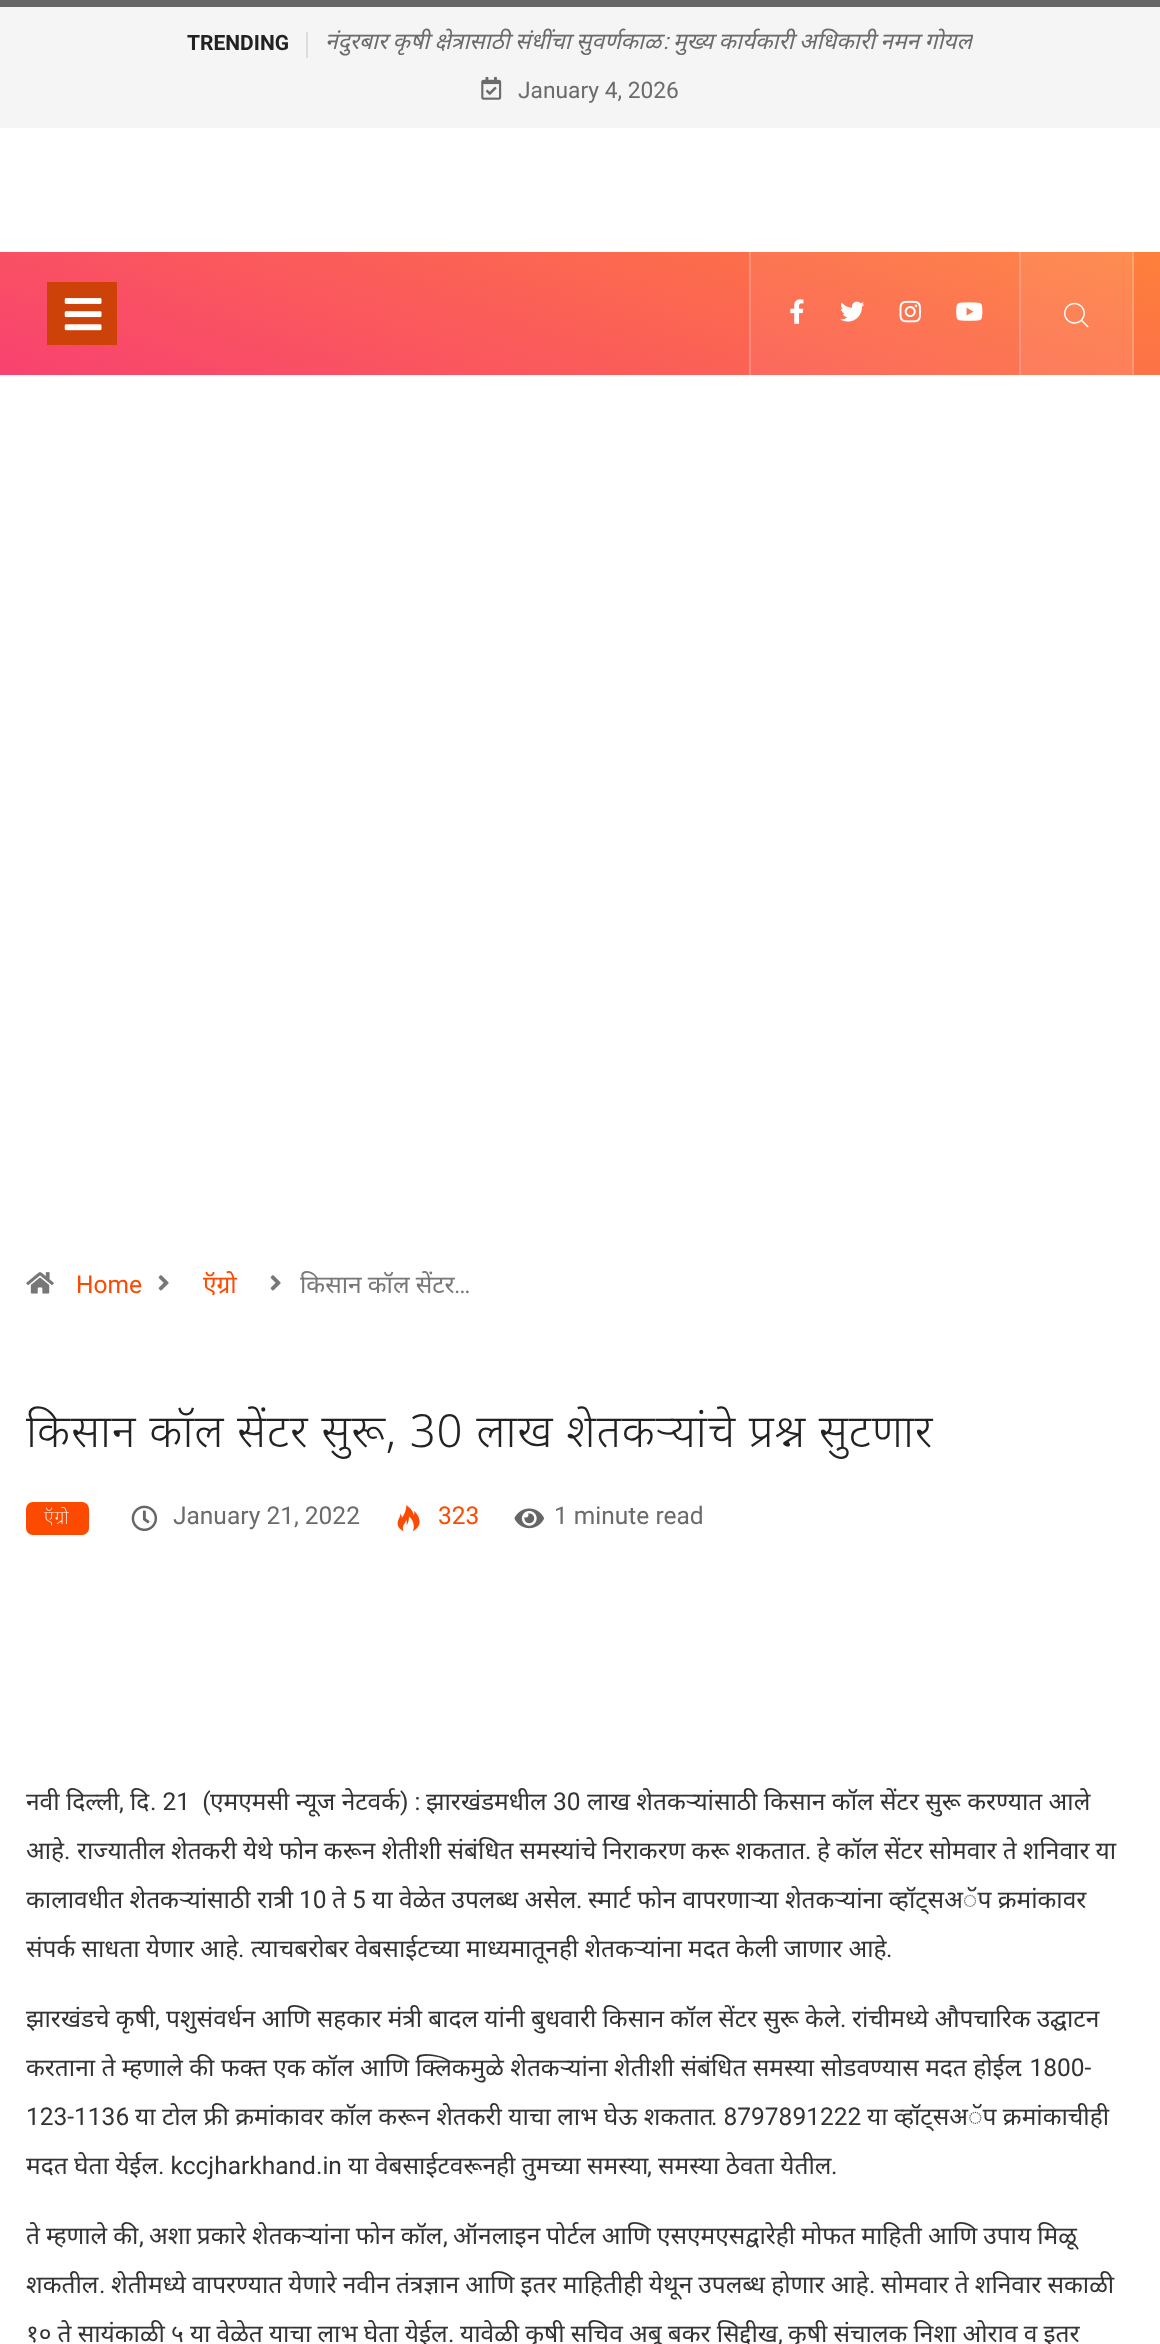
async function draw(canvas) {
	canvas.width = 1160;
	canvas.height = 2344;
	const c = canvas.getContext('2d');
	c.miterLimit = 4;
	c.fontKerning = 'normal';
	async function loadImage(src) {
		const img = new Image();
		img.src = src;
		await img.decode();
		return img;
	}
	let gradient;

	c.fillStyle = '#fff';
	c.fillRect(0, 0, 1160, 2344);
	for (const [x, y, w, h, color] of [
		[0, 0, 1160, 7, '#676666'],
		[0, 7, 1160, 121, '#f5f5f5'],
		[306, 32, 2, 26, '#dedbdb'],
	]) {
		c.fillStyle = color;
		c.fillRect(x, y, w, h);
	}
	c.font = 'bold 21px Roboto';
	c.fillStyle = '#222';
	c.fillText('TRENDING', 187, 50);
	c.wordSpacing = '-0.5px';
	c.font = 'italic 22.75px Noto Sans';
	c.fillStyle = '#6b6b6b';
	c.fillText('नंदुरबार कृषी क्षेत्रासाठी संधींचा सुवर्णकाळ', 325, 49);
	c.wordSpacing = '0px';
	c.font = 'italic 22.75px Roboto';
	c.fillText(':', 663, 49);
	c.save();
	c.beginPath();
	c.rect(326, 18, 647, 52);
	c.clip();
	c.wordSpacing = '-0.5px';
	c.font = 'italic 22.75px Noto Sans';
	c.fillText('मुख्य कार्यकारी अधिकारी नमन गोयल', 673, 49);
	c.restore();
	c.drawImage(await loadImage('img1.png'), 481, 76, 21, 24);
	c.font = '22.75px Roboto';
	c.fillText('January 4, 2026', 518, 98);
	gradient = c.createLinearGradient(493, 554, 668, 73);
	gradient.addColorStop(0, '#f84270');
	gradient.addColorStop(1, '#fe803b');
	c.fillStyle = gradient;
	c.fillRect(0, 252, 1160, 123);
	gradient = c.createLinearGradient(493, 554, 668, 73);
	gradient.addColorStop(0, '#f9557e');
	gradient.addColorStop(1, '#fe8d4f');
	c.fillStyle = gradient;
	c.fillRect(1021, 252, 111, 123);
	gradient = c.createLinearGradient(493, 554, 668, 73);
	gradient.addColorStop(0, '#fa7798');
	gradient.addColorStop(1, '#fea472');
	c.fillStyle = gradient;
	c.fillRect(1132, 252, 2, 123);
	gradient = c.createLinearGradient(493, 554, 668, 73);
	gradient.addColorStop(0, '#fa7798');
	gradient.addColorStop(1, '#fea372');
	c.fillStyle = gradient;
	c.fillRect(1020, 252, 1, 123);
	gradient = c.createLinearGradient(493, 554, 668, 73);
	gradient.addColorStop(0, '#f84b77');
	gradient.addColorStop(1, '#fe8645');
	c.fillStyle = gradient;
	c.fillRect(751, 252, 268, 123);
	gradient = c.createLinearGradient(493, 554, 668, 73);
	gradient.addColorStop(0, '#f96f92');
	gradient.addColorStop(1, '#fe9e6a');
	c.fillStyle = gradient;
	c.fillRect(749, 252, 2, 123);
	c.fillRect(1019, 252, 1, 123);
	c.fillStyle = '#cc4209';
	c.fillRect(47, 282, 70, 63);
	c.drawImage(await loadImage('img2.png'), 64, 298, 38, 33);
	c.drawImage(await loadImage('img3.png'), 790, 299, 14, 25);
	c.drawImage(await loadImage('img4.png'), 840, 301, 25, 21);
	c.drawImage(await loadImage('img5.png'), 899, 300, 22, 23);
	c.drawImage(await loadImage('img6.png'), 956, 302, 27, 19);
	c.drawImage(await loadImage('img7.png'), 1064, 302, 25, 26);
	c.drawImage(await loadImage('img8.png'), 26, 1272, 28, 22);
	c.font = '24.5px Roboto';
	c.fillStyle = '#fc4a00';
	c.fillText('Home', 76, 1293);
	c.drawImage(await loadImage('img9.png'), 158, 1275, 11, 16);
	c.font = '24.5px Noto Sans';
	c.fillText('ऍग्रो', 203, 1293);
	c.drawImage(await loadImage('img9.png'), 270, 1275, 11, 16);
	c.wordSpacing = '-0.25px';
	c.fillStyle = '#777';
	c.fillText('किसान कॉल सेंटर', 300, 1293);
	c.wordSpacing = '0px';
	c.font = '24.5px Roboto';
	c.fillText('…', 454, 1293);
	c.letterSpacing = '0.8px';
	c.wordSpacing = '0.25px';
	c.font = '300 45.5px Noto Sans';
	c.fillStyle = '#222';
	c.fillText('किसान कॉल सेंटर सुरू, 30 लाख शेतकऱ्यांचे प्रश्न सुटणार', 26, 1447);
	c.fillStyle = '#fc4a00';
	c.beginPath();
	c.roundRect(26, 1502, 63, 33, 7);
	c.fill();
	c.letterSpacing = '0.75px';
	c.wordSpacing = '0px';
	c.font = '200 19px Noto Sans';
	c.fillStyle = '#fff';
	c.fillText('ऍग्रो', 44, 1524);
	c.drawImage(await loadImage('img10.png'), 131, 1505, 27, 27);
	c.letterSpacing = '0px';
	c.font = '24.5px Roboto';
	c.fillStyle = '#6b6b6b';
	c.fillText('January 21, 2022', 173, 1524);
	c.drawImage(await loadImage('img11.png'), 397, 1505, 23, 27);
	c.fillStyle = '#fc4a00';
	c.fillText('323', 438, 1524);
	c.drawImage(await loadImage('img12.png'), 514, 1508, 30, 21);
	c.fillStyle = '#6b6b6b';
	c.fillText('1 minute read', 554, 1524);
	c.font = '24.5px Noto Sans';
	c.fillStyle = '#333';
	c.fillText('नवी दिल्ली', 26, 1810);
	c.font = '24.5px Roboto';
	c.fillText(',', 119, 1810);
	c.font = '24.5px Noto Sans';
	c.fillText('दि', 130, 1810);
	c.font = '24.5px Roboto';
	c.fillText('. 21  (', 150, 1810);
	c.font = '24.5px Noto Sans';
	c.fillText('एमएमसी न्यूज नेटवर्क', 210, 1810);
	c.font = '24.5px Roboto';
	c.fillText(') :', 400, 1810);
	c.font = '24.5px Noto Sans';
	c.fillText('झारखंडमधील', 426, 1810);
	c.font = '24.5px Roboto';
	c.fillText('30', 553, 1810);
	c.font = '24.5px Noto Sans';
	c.fillText('लाख शेतकऱ्यांसाठी किसान कॉल सेंटर सुरू करण्यात आले', 587, 1810);
	c.fillText('आहे', 26, 1859);
	c.font = '24.5px Roboto';
	c.fillText('.', 64, 1859);
	c.wordSpacing = '-0.25px';
	c.font = '24.5px Noto Sans';
	c.fillText('राज्यातील शेतकरी येथे फोन करून शेतीशी संबंधित समस्यांचे निराकरण करू शकतात', 77, 1859);
	c.wordSpacing = '0px';
	c.font = '24.5px Roboto';
	c.fillText('.', 805, 1859);
	c.wordSpacing = '-0.25px';
	c.font = '24.5px Noto Sans';
	c.fillText('हे कॉल सेंटर सोमवार ते शनिवार या', 817, 1859);
	c.wordSpacing = '0px';
	c.fillText('कालावधीत शेतकऱ्यांसाठी रात्री', 26, 1908);
	c.font = '24.5px Roboto';
	c.fillText('10', 299, 1908);
	c.font = '24.5px Noto Sans';
	c.fillText('ते', 332, 1908);
	c.font = '24.5px Roboto';
	c.fillText('5', 352, 1908);
	c.font = '24.5px Noto Sans';
	c.fillText('या वेळेत उपलब्ध असेल', 372, 1908);
	c.font = '24.5px Roboto';
	c.fillText('.', 576, 1908);
	c.font = '24.5px Noto Sans';
	c.fillText('स्मार्ट फोन वापरणाऱ्या शेतकऱ्यांना व्हॉट्सअॅप क्रमांकावर', 588, 1908);
	c.wordSpacing = '-0.25px';
	c.fillText('संपर्क साधता येणार आहे', 26, 1957);
	c.wordSpacing = '0px';
	c.font = '24.5px Roboto';
	c.fillText('.', 238, 1957);
	c.wordSpacing = '-0.25px';
	c.font = '24.5px Noto Sans';
	c.fillText('त्याचबरोबर वेबसाईटच्या माध्यमातूनही शेतकऱ्यांना मदत केली जाणार आहे', 251, 1957);
	c.wordSpacing = '0px';
	c.font = '24.5px Roboto';
	c.fillText('.', 886, 1957);
	c.wordSpacing = '-0.25px';
	c.font = '24.5px Noto Sans';
	c.fillText('झारखंडचे कृषी', 26, 2027);
	c.wordSpacing = '0px';
	c.font = '24.5px Roboto';
	c.fillText(',', 155, 2027);
	c.wordSpacing = '-0.25px';
	c.font = '24.5px Noto Sans';
	c.fillText('पशुसंवर्धन आणि सहकार मंत्री बादल यांनी बुधवारी किसान कॉल सेंटर सुरू केले', 166, 2027);
	c.wordSpacing = '0px';
	c.font = '24.5px Roboto';
	c.fillText('.', 840, 2027);
	c.wordSpacing = '-0.25px';
	c.font = '24.5px Noto Sans';
	c.fillText('रांचीमध्ये औपचारिक उद्घाटन', 852, 2027);
	c.wordSpacing = '0px';
	c.fillText('करताना ते म्हणाले की फक्त एक कॉल आणि क्लिकमुळे शेतकऱ्यांना शेतीशी संबंधित समस्या सोडवण्यास मदत होईल', 26, 2076);
	c.font = '24.5px Roboto';
	c.fillText('. 1800-', 1017, 2076);
	c.fillText('123-1136', 26, 2125);
	c.font = '24.5px Noto Sans';
	c.fillText('या टोल फ्री क्रमांकावर कॉल करून शेतकरी याचा लाभ घेऊ शकतात', 135, 2125);
	c.font = '24.5px Roboto';
	c.fillText('. 8797891222', 711, 2125);
	c.font = '24.5px Noto Sans';
	c.fillText('या व्हॉट्सअॅप क्रमांकाचीही', 867, 2125);
	c.fillText('मदत घेता येईल', 26, 2174);
	c.font = '24.5px Roboto';
	c.fillText('. kccjharkhand.in', 158, 2174);
	c.font = '24.5px Noto Sans';
	c.fillText('या वेबसाईटवरूनही तुमच्या समस्या', 348, 2174);
	c.font = '24.5px Roboto';
	c.fillText(',', 647, 2174);
	c.font = '24.5px Noto Sans';
	c.fillText('समस्या ठेवता येतील', 658, 2174);
	c.font = '24.5px Roboto';
	c.fillText('.', 831, 2174);
	c.wordSpacing = '-0.25px';
	c.font = '24.5px Noto Sans';
	c.fillText('ते म्हणाले की', 26, 2244);
	c.wordSpacing = '0px';
	c.font = '24.5px Roboto';
	c.fillText(',', 139, 2244);
	c.wordSpacing = '-0.25px';
	c.font = '24.5px Noto Sans';
	c.fillText('अशा प्रकारे शेतकऱ्यांना फोन कॉल', 149, 2244);
	c.wordSpacing = '0px';
	c.font = '24.5px Roboto';
	c.fillText(',', 443, 2244);
	c.wordSpacing = '-0.25px';
	c.font = '24.5px Noto Sans';
	c.fillText('ऑनलाइन पोर्टल आणि एसएमएसद्वारेही मोफत माहिती आणि उपाय मिळू', 453, 2244);
	c.wordSpacing = '0px';
	c.fillText('शकतील', 26, 2293);
	c.font = '24.5px Roboto';
	c.fillText('.', 99, 2293);
	c.wordSpacing = '-0.25px';
	c.font = '24.5px Noto Sans';
	c.fillText('शेतीमध्ये वापरण्यात येणारे नवीन तंत्रज्ञान आणि इतर माहितीही येथून उपलब्ध होणार आहे', 111, 2293);
	c.fillText('सोमवार ते शनिवार सकाळी', 881, 2293);
	c.wordSpacing = '0px';
	c.font = '24.5px Roboto';
	c.fillText('.', 869, 2293);
	c.wordSpacing = '-0.25px';
	c.font = '24.5px Noto Sans';
	c.fillText('१० ते सायंकाळी ५ या वेळेत याचा लाभ घेता येईल', 26, 2342);
	c.wordSpacing = '0px';
	c.font = '24.5px Roboto';
	c.fillText('.', 448, 2342);
	c.wordSpacing = '-0.25px';
	c.font = '24.5px Noto Sans';
	c.fillText('यावेळी कृषी सचिव अबू बकर सिद्दीख', 460, 2342);
	c.wordSpacing = '0px';
	c.font = '24.5px Roboto';
	c.fillText(',', 778, 2342);
	c.wordSpacing = '-0.25px';
	c.font = '24.5px Noto Sans';
	c.fillText('कृषी संचालक निशा ओराव व इतर', 788, 2342);
}

draw(document.querySelector('canvas'));
